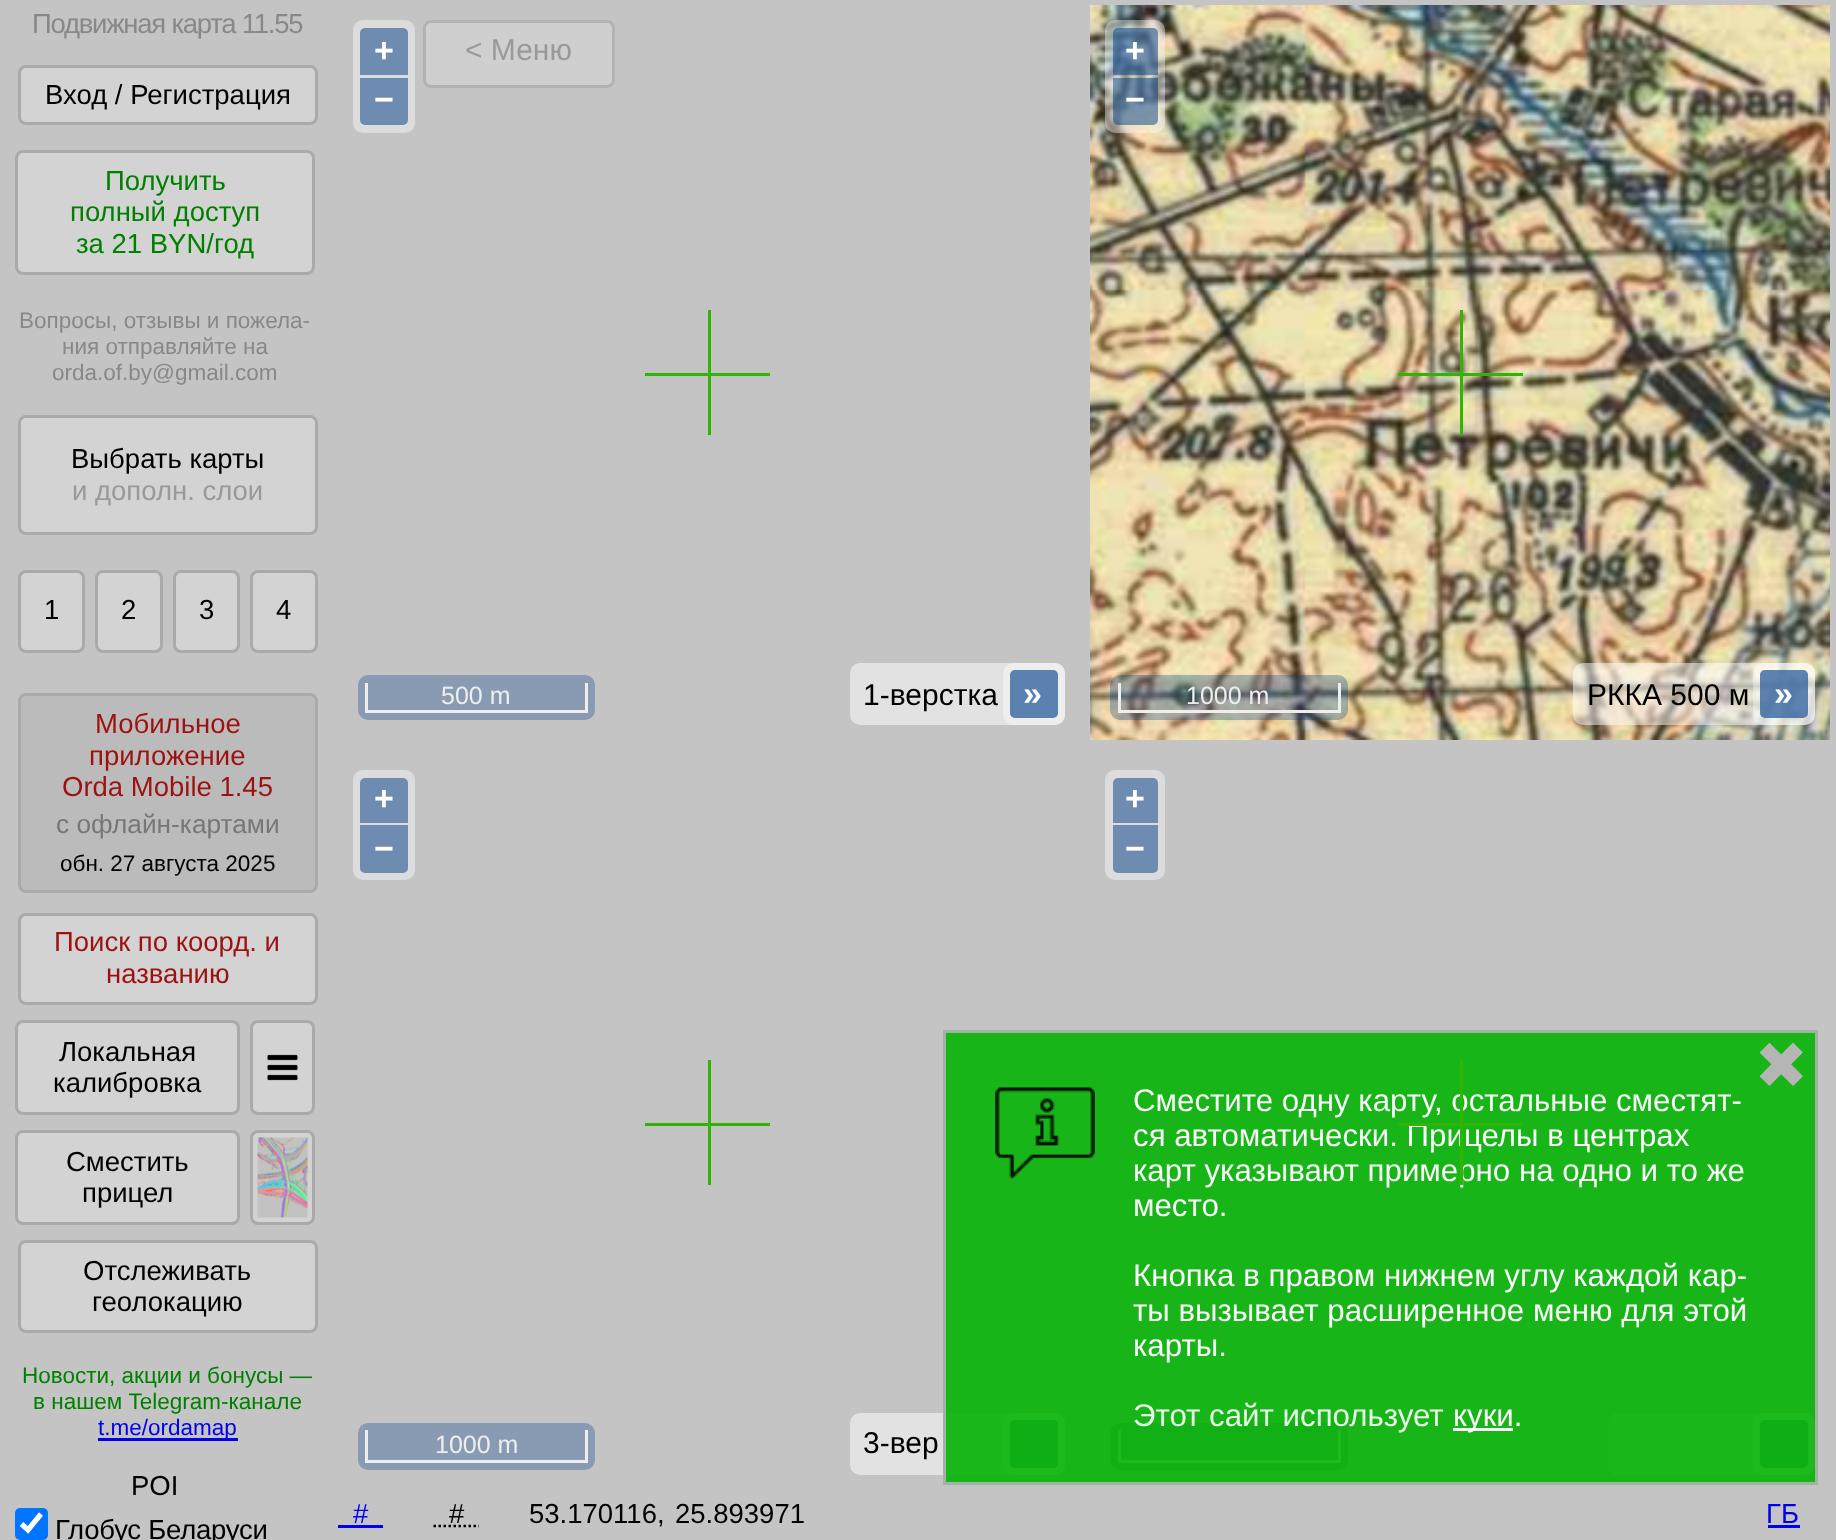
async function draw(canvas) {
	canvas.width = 1836;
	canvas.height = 1540;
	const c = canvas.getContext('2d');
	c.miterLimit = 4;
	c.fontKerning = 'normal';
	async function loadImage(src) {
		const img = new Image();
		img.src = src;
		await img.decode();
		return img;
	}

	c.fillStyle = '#c4c4c4';
	c.fillRect(0, 0, 1836, 1540);
	c.letterSpacing = '-1.25px';
	c.font = '27.5px Liberation Sans';
	c.fillStyle = '#888';
	c.fillText('Подвижная карта 11.55', 32, 33);
	c.fillStyle = '#d3d3d3';
	c.beginPath();
	c.roundRect(19.5, 66.5, 297, 57, 6.5);
	c.fill();
	c.strokeStyle = '#aaa';
	c.lineWidth = 3;
	c.stroke();
	c.letterSpacing = '0px';
	c.fillStyle = '#000';
	c.fillText('Вход / Регистрация', 45, 104);
	c.fillStyle = '#d3d3d3';
	c.beginPath();
	c.roundRect(16.5, 151.5, 297, 122, 6.5);
	c.fill();
	c.stroke();
	c.fillStyle = '#008000';
	for (const [text, x, y] of [
		['Получить', 105, 190],
		['полный доступ', 70, 221],
		['за 21 BYN/год', 76, 253],
	]) {
		c.fillText(text, x, y);
	}
	c.font = '22.5px Liberation Sans';
	c.fillStyle = '#888';
	for (const [text, x, y] of [
		['Вопросы, отзывы и пожела-', 19, 328],
		['ния отправляйте на', 62, 354],
		['orda.of.by@gmail.com', 52, 380],
	]) {
		c.fillText(text, x, y);
	}
	c.fillStyle = '#d3d3d3';
	c.beginPath();
	c.roundRect(19.5, 416.5, 297, 117, 6.5);
	c.fill();
	c.stroke();
	c.font = '27.5px Liberation Sans';
	c.fillStyle = '#000';
	c.fillText('Выбрать карты', 71, 468);
	c.fillStyle = '#999';
	c.fillText('и дополн. слои', 72, 500);
	c.fillStyle = '#d3d3d3';
	c.beginPath();
	c.roundRect(19.5, 571.5, 64, 80, 6.5);
	c.fill();
	c.stroke();
	c.fillStyle = '#000';
	c.fillText('1', 44, 619);
	c.fillStyle = '#d3d3d3';
	c.beginPath();
	c.roundRect(96.5, 571.5, 65, 80, 6.5);
	c.fill();
	c.stroke();
	c.fillStyle = '#000';
	c.fillText('2', 121, 619);
	c.fillStyle = '#d3d3d3';
	c.beginPath();
	c.roundRect(174.5, 571.5, 64, 80, 6.5);
	c.fill();
	c.stroke();
	c.fillStyle = '#000';
	c.fillText('3', 199, 619);
	c.fillStyle = '#d3d3d3';
	c.beginPath();
	c.roundRect(251.5, 571.5, 65, 80, 6.5);
	c.fill();
	c.stroke();
	c.fillStyle = '#000';
	c.fillText('4', 276, 619);
	c.fillStyle = '#bbb';
	c.beginPath();
	c.roundRect(19.5, 694.5, 297, 197, 6.5);
	c.fill();
	c.stroke();
	c.fillStyle = '#9e1111';
	for (const [text, x, y] of [
		['Мобильное', 95, 733],
		['приложение', 89, 765],
		['Orda Mobile 1.45', 62, 796],
	]) {
		c.fillText(text, x, y);
	}
	c.font = '26.25px Liberation Sans';
	c.fillStyle = '#777';
	c.fillText('с офлайн-картами', 56, 833);
	c.font = '22.5px Liberation Sans';
	c.fillStyle = '#000';
	c.fillText('обн. 27 августа 2025', 60, 871);
	c.fillStyle = '#d3d3d3';
	c.beginPath();
	c.roundRect(19.5, 914.5, 297, 89, 6.5);
	c.fill();
	c.stroke();
	c.font = '27.5px Liberation Sans';
	c.fillStyle = '#9e1111';
	c.fillText('Поиск по коорд. и', 54, 951);
	c.fillText('названию', 106, 983);
	c.fillStyle = '#d3d3d3';
	c.beginPath();
	c.roundRect(16.5, 1021.5, 222, 92, 6.5);
	c.fill();
	c.stroke();
	c.fillStyle = '#000';
	c.fillText('Локальная', 59, 1061);
	c.fillText('калибровка', 53, 1092);
	c.fillStyle = '#d3d3d3';
	c.beginPath();
	c.roundRect(251.5, 1021.5, 62, 92, 6.5);
	c.fill();
	c.stroke();
	c.drawImage(await loadImage('img1.png'), 267, 1054, 31, 27);
	c.beginPath();
	c.roundRect(16.5, 1131.5, 222, 92, 6.5);
	c.fill();
	c.stroke();
	c.fillStyle = '#000';
	c.fillText('Сместить', 66, 1171);
	c.fillText('прицел', 82, 1202);
	c.fillStyle = '#d3d3d3';
	c.beginPath();
	c.roundRect(251.5, 1131.5, 62, 92, 6.5);
	c.fill();
	c.stroke();
	c.drawImage(await loadImage('img2.png'), 257, 1137, 51, 81);
	c.beginPath();
	c.roundRect(19.5, 1241.5, 297, 90, 6.5);
	c.fill();
	c.stroke();
	c.fillStyle = '#000';
	c.fillText('Отслеживать', 83, 1280);
	c.fillText('геолокацию', 92, 1311);
	c.font = '22.5px Liberation Sans';
	c.fillStyle = '#008000';
	c.fillText('Новости, акции и бонусы —', 22, 1383);
	c.fillText('в нашем Telegram-канале', 33, 1409);
	c.fillStyle = '#00e';
	c.fillRect(98, 1438, 140, 3);
	c.fillText('t.me/ordamap', 98, 1435);
	c.font = '27.5px Liberation Sans';
	c.fillStyle = '#000';
	c.fillText('POI', 131, 1495);
	c.fillStyle = '#0075ff';
	c.beginPath();
	c.roundRect(15, 1508, 33, 32, 5);
	c.fill();
	c.beginPath();
	c.moveTo(21.5, 1524);
	c.lineTo(28, 1530);
	c.lineTo(41, 1514);
	c.strokeStyle = '#fff';
	c.lineWidth = 5.2;
	c.stroke();
	c.letterSpacing = '-0.25px';
	c.fillStyle = '#000';
	c.fillText('Глобус Беларуси', 55, 1539);
	c.fillStyle = '#cfcfcf';
	c.beginPath();
	c.roundRect(424.5, 21.5, 189, 65, 6.5);
	c.fill();
	c.strokeStyle = '#b2b2b2';
	c.lineWidth = 3;
	c.stroke();
	c.letterSpacing = '0px';
	c.font = '30px Liberation Sans';
	c.fillStyle = '#999';
	c.fillText('< Меню', 465, 60);
	c.fillStyle = '#dcdcdc';
	c.beginPath();
	c.roundRect(353, 20, 62, 113, 10);
	c.fill();
	c.fillStyle = '#6e8cb2';
	c.beginPath();
	c.roundRect(360, 28, 48, 47, [5, 5, 0, 0]);
	c.fill();
	c.font = 'bold 34px Liberation Sans';
	c.fillStyle = '#fff';
	c.fillText('+', 374, 62);
	c.fillStyle = '#6e8cb2';
	c.beginPath();
	c.roundRect(360, 78, 48, 47, [0, 0, 5, 5]);
	c.fill();
	c.fillStyle = '#fff';
	c.fillText('−', 374, 111);
	c.fillStyle = '#dcdcdc';
	c.beginPath();
	c.roundRect(1003, 663, 62, 62, 10);
	c.fill();
	c.fillStyle = '#6e8cb2';
	c.beginPath();
	c.roundRect(1010, 670, 48, 48, 5);
	c.fill();
	c.fillStyle = '#899bb2';
	c.beginPath();
	c.roundRect(358, 675, 237, 45, 10);
	c.fill();
	for (const [x, y, w, h, color] of [
		[585, 683, 3, 30, '#eee'],
		[365, 710, 223, 3, '#eee'],
		[365, 683, 3, 30, '#eee'],
	]) {
		c.fillStyle = color;
		c.fillRect(x, y, w, h);
	}
	c.font = '25px Liberation Sans';
	c.fillText('500 m', 441, 704);
	c.fillStyle = '#ffffff80';
	c.beginPath();
	c.roundRect(850, 663, 215, 62, 10);
	c.fill();
	c.font = '30px Liberation Sans';
	c.fillStyle = '#000';
	c.fillText('1-верстка', 863, 705);
	c.fillStyle = '#003c8880';
	c.beginPath();
	c.roundRect(1010, 670, 48, 48, 5);
	c.fill();
	c.font = 'bold 34px Liberation Sans';
	c.fillStyle = '#fff';
	c.fillText('»', 1023, 705);
	c.fillStyle = '#31b404';
	c.fillRect(708, 310, 3, 125);
	c.fillRect(645, 373, 125, 3);
	c.drawImage(await loadImage('img3.png'), 1090, 5, 740, 735);
	c.fillStyle = '#ffffff66';
	c.beginPath();
	c.roundRect(1105, 20, 60, 113, 10);
	c.fill();
	c.fillStyle = '#003c8880';
	c.beginPath();
	c.roundRect(1113, 28, 45, 47, [5, 5, 0, 0]);
	c.fill();
	c.fillStyle = '#fff';
	c.fillText('+', 1125, 62);
	c.fillStyle = '#003c8880';
	c.beginPath();
	c.roundRect(1113, 78, 45, 47, [0, 0, 5, 5]);
	c.fill();
	c.fillStyle = '#fff';
	c.fillText('−', 1125, 111);
	c.fillStyle = '#ffffff66';
	c.beginPath();
	c.roundRect(1753, 663, 62, 62, 10);
	c.fill();
	c.fillStyle = '#003c8880';
	c.beginPath();
	c.roundRect(1760, 670, 48, 48, 5);
	c.fill();
	c.fillStyle = '#003c884d';
	c.beginPath();
	c.roundRect(1110, 675, 238, 45, 10);
	c.fill();
	for (const [x, y, w, h, color] of [
		[1338, 683, 3, 30, '#eee'],
		[1118, 710, 222, 3, '#eee'],
		[1118, 683, 3, 30, '#eee'],
	]) {
		c.fillStyle = color;
		c.fillRect(x, y, w, h);
	}
	c.font = '25px Liberation Sans';
	c.fillText('1000 m', 1186, 704);
	c.fillStyle = '#ffffff80';
	c.beginPath();
	c.roundRect(1573, 663, 242, 62, 10);
	c.fill();
	c.font = '30px Liberation Sans';
	c.fillStyle = '#000';
	c.fillText('РККА 500 м', 1587, 705);
	c.fillStyle = '#003c8880';
	c.beginPath();
	c.roundRect(1760, 670, 48, 48, 5);
	c.fill();
	c.font = 'bold 34px Liberation Sans';
	c.fillStyle = '#fff';
	c.fillText('»', 1774, 705);
	c.fillStyle = '#31b404';
	c.fillRect(1460, 310, 3, 125);
	c.fillRect(1398, 373, 125, 3);
	c.fillStyle = '#dcdcdc';
	c.beginPath();
	c.roundRect(353, 770, 62, 110, 10);
	c.fill();
	c.fillStyle = '#6e8cb2';
	c.beginPath();
	c.roundRect(360, 778, 48, 45, [5, 5, 0, 0]);
	c.fill();
	c.fillStyle = '#fff';
	c.fillText('+', 374, 810);
	c.fillStyle = '#6e8cb2';
	c.beginPath();
	c.roundRect(360, 825, 48, 48, [0, 0, 5, 5]);
	c.fill();
	c.fillStyle = '#fff';
	c.fillText('−', 374, 860);
	c.fillStyle = '#899bb2';
	c.beginPath();
	c.roundRect(358, 1423, 237, 47, 10);
	c.fill();
	for (const [x, y, w, h, color] of [
		[585, 1430, 3, 33, '#eee'],
		[365, 1460, 223, 3, '#eee'],
		[365, 1430, 3, 33, '#eee'],
	]) {
		c.fillStyle = color;
		c.fillRect(x, y, w, h);
	}
	c.font = '25px Liberation Sans';
	c.fillText('1000 m', 435, 1453);
	c.fillStyle = '#dcdcdc';
	c.beginPath();
	c.roundRect(1003, 1413, 62, 62, 10);
	c.fill();
	c.fillStyle = '#6e8cb2';
	c.beginPath();
	c.roundRect(1010, 1420, 48, 48, 5);
	c.fill();
	c.fillStyle = '#ffffff80';
	c.beginPath();
	c.roundRect(850, 1413, 215, 62, 10);
	c.fill();
	c.font = '30px Liberation Sans';
	c.fillStyle = '#000';
	c.fillText('3-вер', 863, 1453);
	c.fillStyle = '#003c8880';
	c.beginPath();
	c.roundRect(1010, 1420, 48, 48, 5);
	c.fill();
	c.fillStyle = '#31b404';
	c.fillRect(708, 1060, 3, 125);
	c.fillRect(645, 1123, 125, 3);
	c.fillStyle = '#dcdcdc';
	c.beginPath();
	c.roundRect(1105, 770, 60, 110, 10);
	c.fill();
	c.fillStyle = '#6e8cb2';
	c.beginPath();
	c.roundRect(1113, 778, 45, 45, [5, 5, 0, 0]);
	c.fill();
	c.font = 'bold 34px Liberation Sans';
	c.fillStyle = '#fff';
	c.fillText('+', 1125, 810);
	c.fillStyle = '#6e8cb2';
	c.beginPath();
	c.roundRect(1113, 825, 45, 48, [0, 0, 5, 5]);
	c.fill();
	c.fillStyle = '#fff';
	c.fillText('−', 1125, 860);
	c.fillStyle = '#dcdcdc';
	c.beginPath();
	c.roundRect(1753, 1413, 62, 62, 10);
	c.fill();
	c.fillStyle = '#6e8cb2';
	c.beginPath();
	c.roundRect(1760, 1420, 48, 48, 5);
	c.fill();
	c.fillStyle = '#ffffff80';
	c.beginPath();
	c.roundRect(1608, 1413, 207, 62, 10);
	c.fill();
	c.fillStyle = '#003c8880';
	c.beginPath();
	c.roundRect(1760, 1420, 48, 48, 5);
	c.fill();
	c.fillStyle = '#899bb2';
	c.beginPath();
	c.roundRect(1110, 1423, 238, 47, 10);
	c.fill();
	for (const [x, y, w, h, color] of [
		[1338, 1430, 3, 33, '#eee'],
		[1118, 1460, 222, 3, '#eee'],
		[1118, 1430, 3, 33, '#eee'],
		[943, 1030, 875, 455, '#04b404e6'],
	]) {
		c.fillStyle = color;
		c.fillRect(x, y, w, h);
	}
	c.strokeStyle = '#b3b3b3e6';
	c.strokeRect(944.5, 1031.5, 872, 452);
	c.font = '31.25px Liberation Sans';
	c.fillStyle = '#f9f9f9';
	for (const [text, x, y] of [
		['Сместите одну карту, остальные сместят-', 1133, 1111],
		['ся автоматически. Прицелы в центрах', 1133, 1146],
		['карт указывают примерно на одно и то же', 1133, 1181],
	]) {
		c.fillText(text, x, y);
	}
	c.fillStyle = '#31b404';
	c.fillRect(1460, 1060, 3, 125);
	c.fillRect(1398, 1123, 125, 3);
	c.font = '27.5px Liberation Sans';
	c.fillStyle = '#00e';
	c.fillText('#', 353, 1523);
	c.fillRect(338, 1525, 45, 3);
	c.fillStyle = '#000';
	c.fillText('#', 449, 1523);
	c.beginPath();
	c.moveTo(433.5, 1526);
	c.lineTo(479, 1526);
	c.strokeStyle = '#000';
	c.lineWidth = 2.5;
	c.setLineDash([2.5, 2.5]);
	c.stroke();
	c.fillText('53.170116,', 529, 1523);
	c.fillText('25.893971', 675, 1523);
	c.fillStyle = '#00e';
	c.fillText('ГБ', 1766, 1523);
	c.fillRect(1768, 1525, 32, 3);
	c.font = '65px DejaVu Sans';
	c.fillStyle = '#b5b5b5';
	c.fillText('✖', 1754, 1088);
	c.drawImage(await loadImage('img4.png'), 995, 1087, 100, 92);
	c.font = '31.25px Liberation Sans';
	c.fillStyle = '#f9f9f9';
	for (const [text, x, y] of [
		['место.', 1133, 1216],
		['Кнопка в правом нижнем углу каждой кар-', 1133, 1286],
		['ты вызывает расширенное меню для этой', 1133, 1321],
		['карты.', 1133, 1356],
	]) {
		c.fillText(text, x, y);
	}
	c.fillStyle = '#e8f8e8';
	c.fillText('Этот сайт использует', 1133, 1426);
	c.fillStyle = '#f9f9f9';
	c.fillRect(1453, 1428, 60, 3);
	c.fillText('куки.', 1453, 1426);
}

draw(document.querySelector('canvas'));
